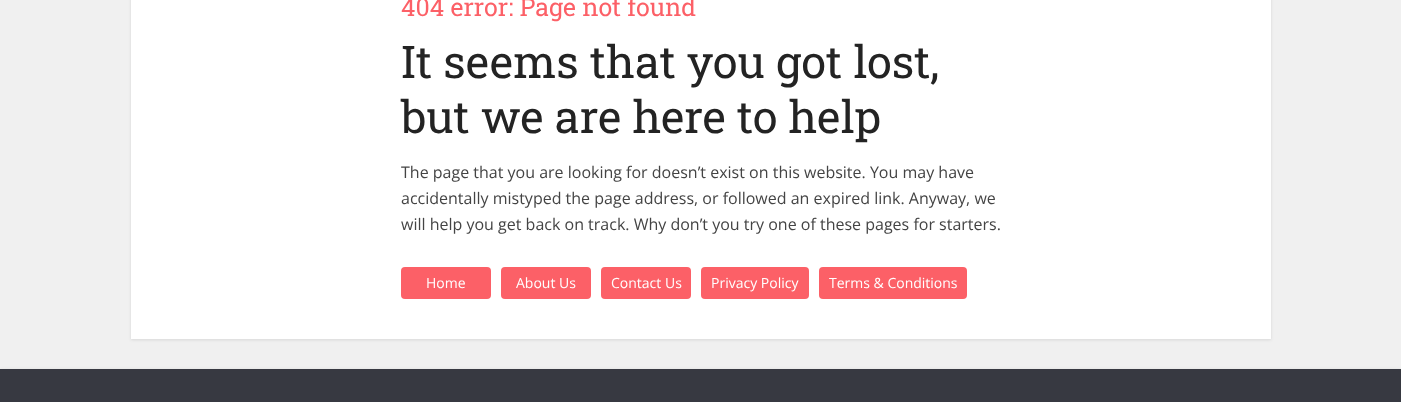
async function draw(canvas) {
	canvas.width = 1401;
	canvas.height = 402;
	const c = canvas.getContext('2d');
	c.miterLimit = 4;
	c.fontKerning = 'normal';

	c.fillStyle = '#f0f0f0';
	c.fillRect(0, 0, 1401, 402);
	c.fillStyle = '#0000001a';
	c.filter = 'blur(1.5px)';
	c.beginPath();
	c.rect(131, -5, 1140, 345);
	c.fill();
	c.filter = 'none';
	c.fillStyle = '#fff';
	c.fillRect(131, 0, 1140, 339);
	c.font = '25px Roboto Slab';
	c.fillStyle = '#fc6067';
	c.fillText('404 error: Page not found', 401, 16);
	c.font = '45px Roboto Slab';
	c.fillStyle = '#232323';
	c.fillText('It seems that you got lost,', 401, 78);
	c.fillText('but we are here to help', 401, 133);
	c.font = '16px Open Sans';
	c.fillStyle = '#444';
	for (const [text, x, y] of [
		['The page that you are looking for doesn’t exist on this website. You may have', 401, 178],
		['accidentally mistyped the page address, or followed an expired link. Anyway, we', 401, 204],
		['will help you get back on track. Why don’t you try one of these pages for starters.', 401, 230],
	]) {
		c.fillText(text, x, y);
	}
	c.fillStyle = '#fc6067';
	c.beginPath();
	c.roundRect(401, 267, 90, 32, 4);
	c.fill();
	c.font = '14px Open Sans';
	c.fillStyle = '#fff';
	c.fillText('Home', 426, 288);
	c.fillStyle = '#fc6067';
	c.beginPath();
	c.roundRect(501, 267, 90, 32, 4);
	c.fill();
	c.fillStyle = '#fff';
	c.fillText('About Us', 516, 288);
	c.fillStyle = '#fc6067';
	c.beginPath();
	c.roundRect(601, 267, 90, 32, 4);
	c.fill();
	c.fillStyle = '#fff';
	c.fillText('Contact Us', 611, 288);
	c.fillStyle = '#fc6067';
	c.beginPath();
	c.roundRect(701, 267, 108, 32, 4);
	c.fill();
	c.fillStyle = '#fff';
	c.fillText('Privacy Policy', 711, 288);
	c.fillStyle = '#fc6067';
	c.beginPath();
	c.roundRect(819, 267, 148, 32, 4);
	c.fill();
	c.fillStyle = '#fff';
	c.fillText('Terms & Conditions', 829, 288);
	c.fillStyle = '#00000033';
	c.filter = 'blur(2px)';
	c.beginPath();
	c.rect(0, 371, 1401, 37);
	c.fill();
	c.filter = 'none';
	c.fillStyle = '#373941';
	c.fillRect(0, 369, 1401, 33);
}

draw(document.querySelector('canvas'));
